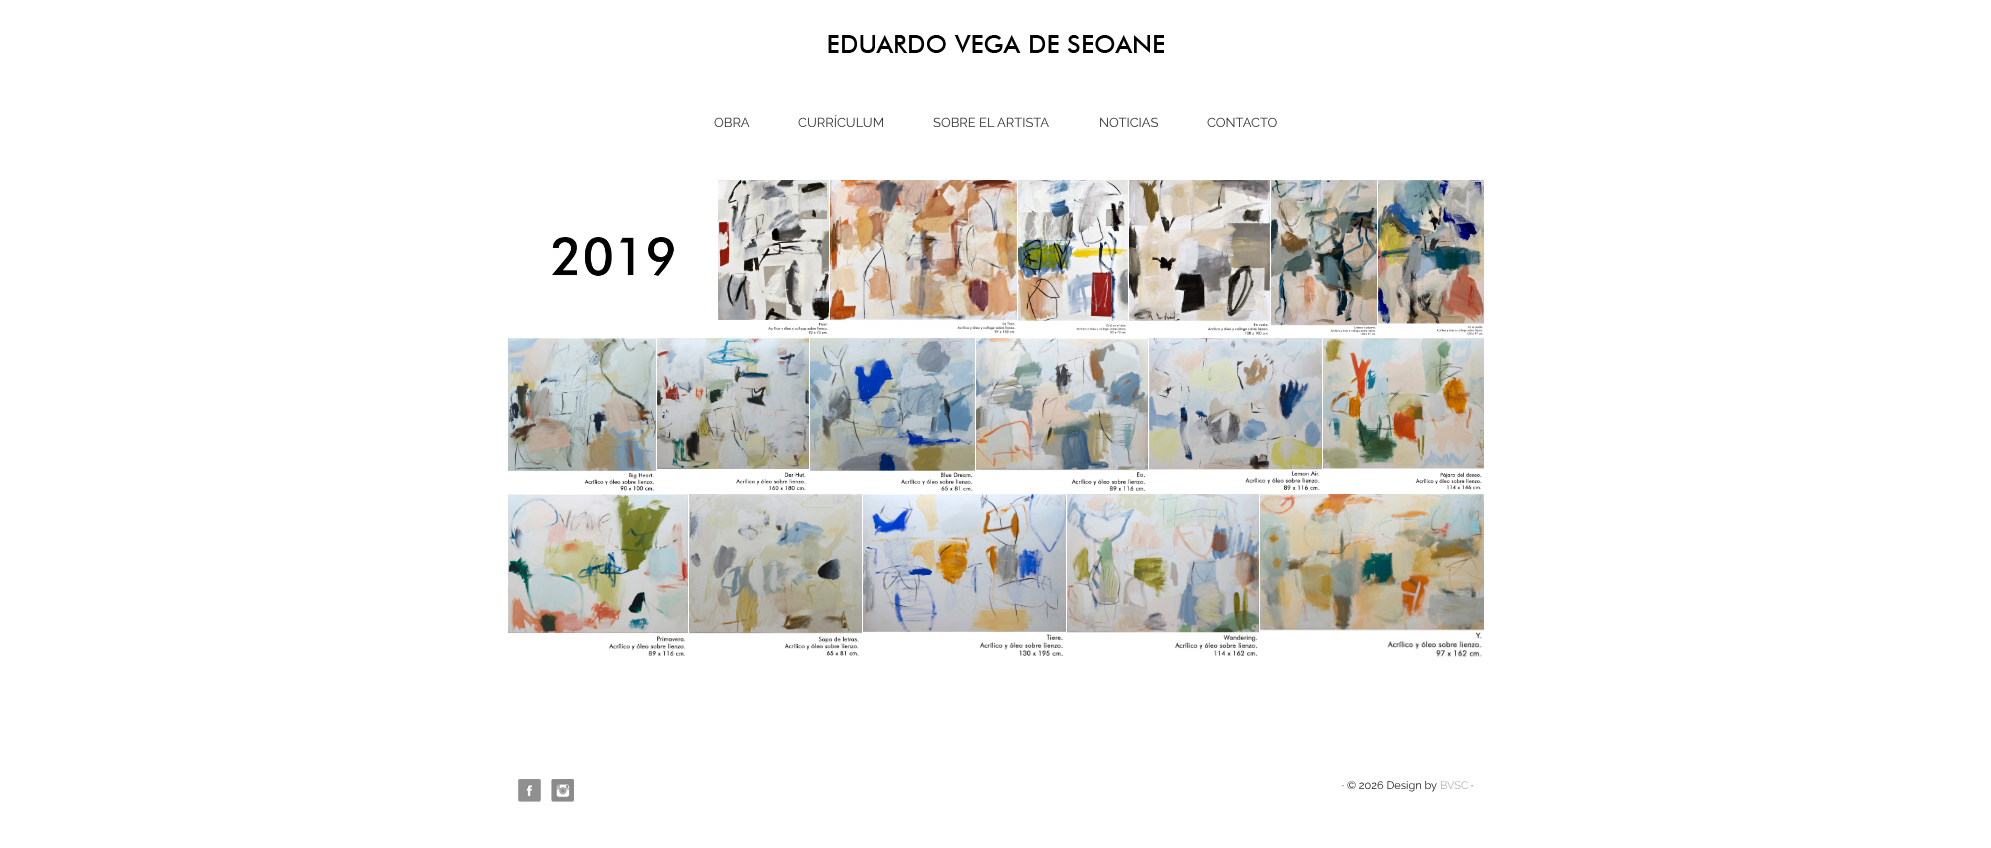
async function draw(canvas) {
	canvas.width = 1991;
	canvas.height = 848;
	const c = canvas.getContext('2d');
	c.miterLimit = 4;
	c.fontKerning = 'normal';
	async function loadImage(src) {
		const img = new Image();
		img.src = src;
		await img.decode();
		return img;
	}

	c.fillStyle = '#fff';
	c.fillRect(0, 0, 1991, 848);
	c.drawImage(await loadImage('img1.png'), 828, 35, 336, 18);
	c.font = '100 13px Raleway';
	c.fillStyle = '#333';
	for (const [text, x, y] of [
		['OBRA', 714, 127],
		['CURRÍCULUM', 798, 127],
		['SOBRE EL ARTISTA', 933, 127],
		['NOTICIAS', 1099, 127],
		['CONTACTO', 1207, 127],
	]) {
		c.fillText(text, x, y);
	}
	c.drawImage(await loadImage('img2.png'), 552, 237, 122, 39);
	c.drawImage(await loadImage('img3.png'), 718, 180, 111, 154);
	c.drawImage(await loadImage('img4.png'), 830, 180, 187, 154);
	c.drawImage(await loadImage('img5.png'), 1018, 180, 110, 154);
	c.drawImage(await loadImage('img6.png'), 1129, 180, 141, 155);
	c.drawImage(await loadImage('img7.png'), 1271, 180, 106, 155);
	c.drawImage(await loadImage('img8.png'), 1378, 180, 106, 155);
	c.drawImage(await loadImage('img9.png'), 508, 338, 148, 153);
	c.drawImage(await loadImage('img10.png'), 657, 338, 152, 153);
	c.drawImage(await loadImage('img11.png'), 810, 338, 165, 153);
	c.drawImage(await loadImage('img12.png'), 976, 338, 172, 153);
	c.drawImage(await loadImage('img13.png'), 1149, 338, 173, 153);
	c.drawImage(await loadImage('img14.png'), 1323, 338, 161, 152);
	c.drawImage(await loadImage('img15.png'), 508, 494, 180, 162);
	c.drawImage(await loadImage('img16.png'), 689, 494, 173, 162);
	c.drawImage(await loadImage('img17.png'), 863, 494, 203, 162);
	c.drawImage(await loadImage('img18.png'), 1067, 494, 192, 162);
	c.drawImage(await loadImage('img19.png'), 1260, 494, 224, 163);
	c.drawImage(await loadImage('img20.png'), 518, 779, 23, 23);
	c.drawImage(await loadImage('img21.png'), 551, 779, 23, 23);
	c.font = '100 11px Raleway';
	c.fillStyle = '#222';
	c.fillText('· © 2026 Design by', 1342, 789);
	c.fillStyle = '#b4b4b4';
	c.fillText('BVSC', 1440, 789);
	c.fillStyle = '#222';
	c.fillText('·', 1471, 789);
}

draw(document.querySelector('canvas'));
